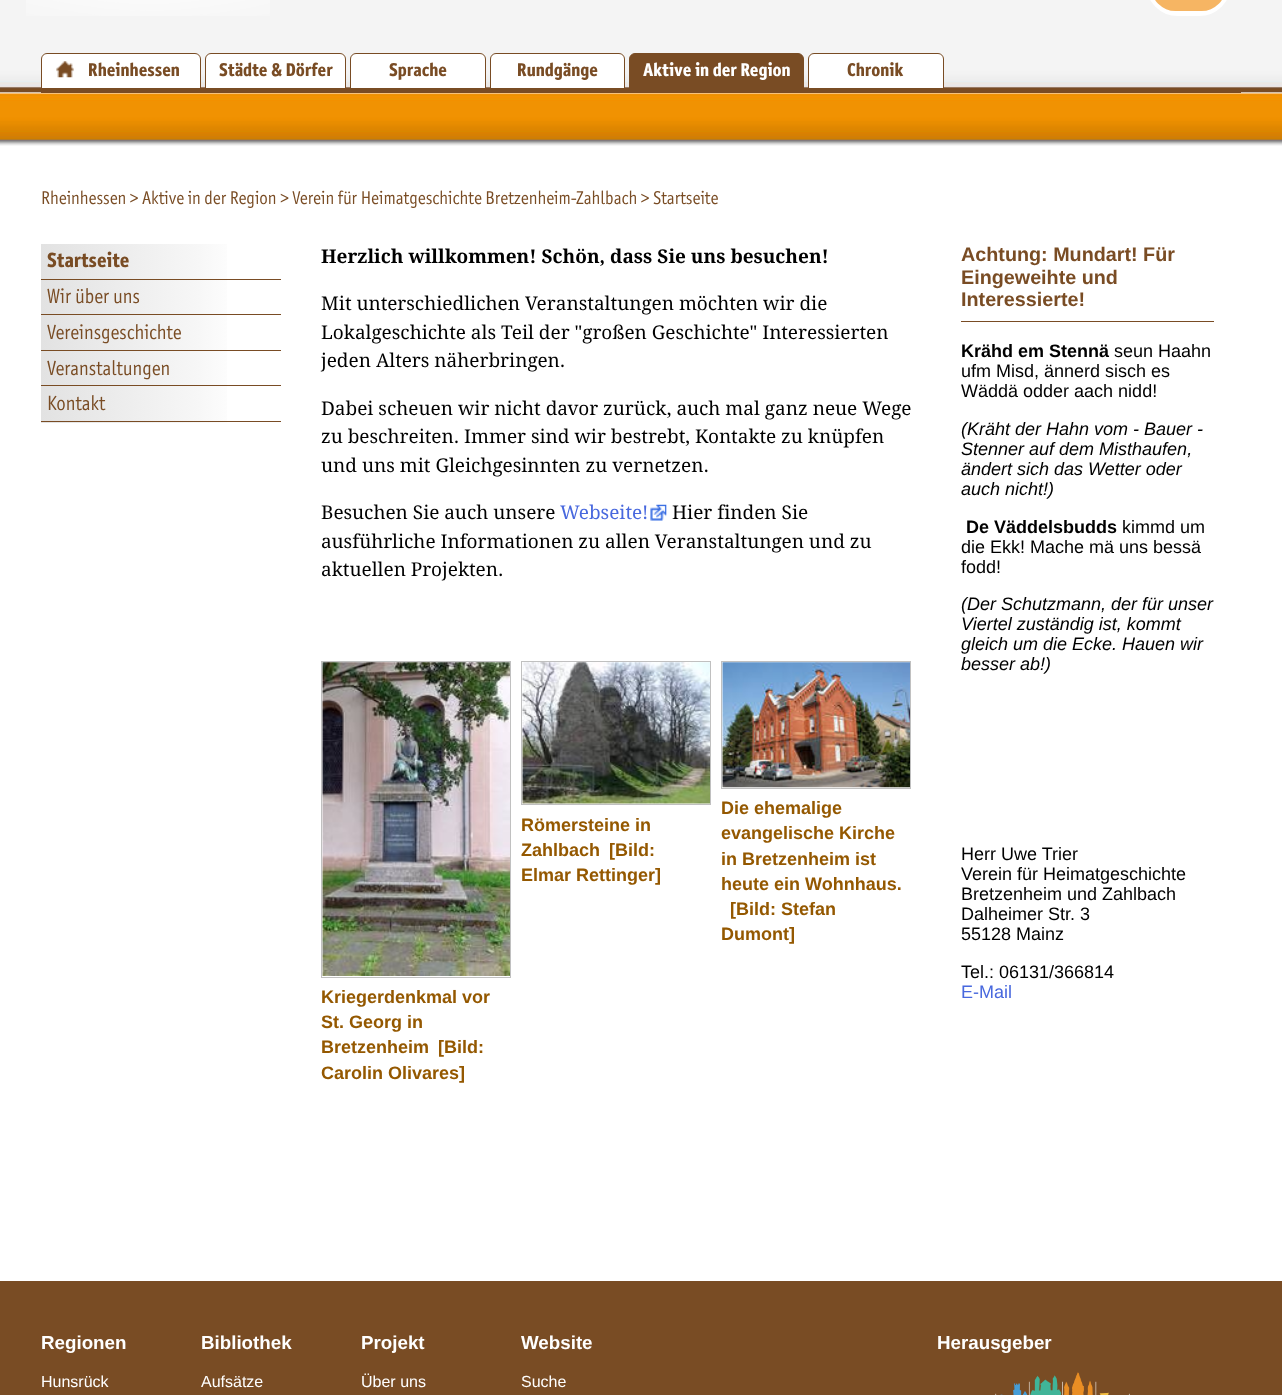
async function draw(canvas) {
	canvas.width = 1282;
	canvas.height = 1395;
	const c = canvas.getContext('2d');
	c.miterLimit = 4;
	c.fontKerning = 'normal';
	async function loadImage(src) {
		const img = new Image();
		img.src = src;
		await img.decode();
		return img;
	}
	let gradient;

	c.fillStyle = '#fff';
	c.fillRect(0, 0, 1282, 1395);
	c.drawImage(await loadImage('img1.png'), 0, 0, 1282, 146);
	c.drawImage(await loadImage('img2.png'), 26, 0, 244, 16);
	c.beginPath();
	c.roundRect(1148.5, -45.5, 80, 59, 40);
	c.strokeStyle = '#fff';
	c.lineWidth = 5;
	c.stroke();
	c.fillStyle = '#f6b563';
	c.beginPath();
	c.roundRect(1151, -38, 75, 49, 37.5);
	c.fill();
	c.fillStyle = '#fff';
	c.beginPath();
	c.roundRect(41, 53, 160, 36, [6, 6, 0, 0]);
	c.fill();
	c.drawImage(await loadImage('img3.png'), 56, 61, 18, 17);
	c.beginPath();
	c.roundRect(41.5, 53.5, 159, 35, [5.5, 5.5, 0, 0]);
	c.strokeStyle = '#794c24';
	c.lineWidth = 1;
	c.stroke();
	c.font = 'bold 18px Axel';
	c.fillStyle = '#794c24';
	c.fillText('Rheinhessen', 88, 76);
	c.fillStyle = '#fff';
	c.beginPath();
	c.roundRect(205.5, 53.5, 140, 35, [5.5, 5.5, 0, 0]);
	c.fill();
	c.stroke();
	c.fillStyle = '#794c24';
	c.fillText('Städte & Dörfer', 219, 76);
	c.fillStyle = '#fff';
	c.beginPath();
	c.roundRect(350.5, 53.5, 135, 35, [5.5, 5.5, 0, 0]);
	c.fill();
	c.stroke();
	c.fillStyle = '#794c24';
	c.fillText('Sprache', 389, 76);
	c.fillStyle = '#fff';
	c.beginPath();
	c.roundRect(490.5, 53.5, 134, 35, [5.5, 5.5, 0, 0]);
	c.fill();
	c.stroke();
	c.fillStyle = '#794c24';
	c.fillText('Rundgänge', 517, 76);
	c.beginPath();
	c.roundRect(629.5, 53.5, 174, 35, [5.5, 5.5, 0, 0]);
	c.fill();
	c.stroke();
	c.fillStyle = '#fff';
	c.fillText('Aktive in der Region', 643, 76);
	c.beginPath();
	c.roundRect(808.5, 53.5, 135, 35, [5.5, 5.5, 0, 0]);
	c.fill();
	c.stroke();
	c.fillStyle = '#794c24';
	c.fillText('Chronik', 847, 76);
	c.fillRect(41, 88, 1200, 5);
	c.font = '18px Axel';
	c.fillText('Rheinhessen > Aktive in der Region > Verein für Heimatgeschichte Bretzenheim-Zahlbach > Startseite', 41, 204);
	gradient = c.createLinearGradient(41, 244, 281, 244);
	gradient.addColorStop(0, '#e2e2e2');
	gradient.addColorStop(0.66, '#f7f7f7');
	gradient.addColorStop(0.83, '#fff');
	c.fillStyle = gradient;
	c.fillRect(41, 244, 186, 35);
	c.fillStyle = '#794c24';
	c.fillRect(41, 279, 240, 1);
	c.font = 'bold 20px Axel';
	c.fillText('Startseite', 47, 267);
	gradient = c.createLinearGradient(41, 280, 281, 280);
	gradient.addColorStop(0, '#e2e2e2');
	gradient.addColorStop(0.66, '#f7f7f7');
	gradient.addColorStop(0.83, '#fff');
	c.fillStyle = gradient;
	c.fillRect(41, 280, 186, 34);
	c.fillStyle = '#794c24';
	c.fillRect(41, 314, 240, 1);
	c.font = '20px Axel';
	c.fillText('Wir über uns', 47, 303);
	gradient = c.createLinearGradient(41, 315, 281, 315);
	gradient.addColorStop(0, '#e2e2e2');
	gradient.addColorStop(0.66, '#f7f7f7');
	gradient.addColorStop(0.83, '#fff');
	c.fillStyle = gradient;
	c.fillRect(41, 315, 186, 35);
	c.fillStyle = '#794c24';
	c.fillRect(41, 350, 240, 1);
	c.fillText('Vereinsgeschichte', 47, 339);
	gradient = c.createLinearGradient(41, 351, 281, 351);
	gradient.addColorStop(0, '#e2e2e2');
	gradient.addColorStop(0.66, '#f7f7f7');
	gradient.addColorStop(0.83, '#fff');
	c.fillStyle = gradient;
	c.fillRect(41, 351, 186, 34);
	c.fillStyle = '#794c24';
	c.fillRect(41, 385, 240, 1);
	c.fillText('Veranstaltungen', 47, 375);
	gradient = c.createLinearGradient(41, 386, 281, 386);
	gradient.addColorStop(0, '#e2e2e2');
	gradient.addColorStop(0.66, '#f7f7f7');
	gradient.addColorStop(0.83, '#fff');
	c.fillStyle = gradient;
	c.fillRect(41, 386, 186, 37);
	c.fillStyle = '#794c24';
	c.fillRect(41, 421, 240, 1);
	c.fillText('Kontakt', 47, 410);
	c.font = 'bold 19px Droid Serif';
	c.fillStyle = '#000';
	c.fillText('Herzlich willkommen! Schön, dass Sie uns besuchen!', 321, 263);
	c.font = '19px Droid Serif';
	for (const [text, x, y] of [
		['Mit unterschiedlichen Veranstaltungen möchten wir die', 321, 310],
		['Lokalgeschichte als Teil der "großen Geschichte" Interessierten', 321, 339],
		['jeden Alters näherbringen.', 321, 367],
		['Dabei scheuen wir nicht davor zurück, auch mal ganz neue Wege', 321, 415],
		['zu beschreiten. Immer sind wir bestrebt, Kontakte zu knüpfen', 321, 443],
		['und uns mit Gleichgesinnten zu vernetzen.', 321, 472],
		['Besuchen Sie auch unsere', 321, 519],
	]) {
		c.fillText(text, x, y);
	}
	c.fillStyle = '#4868de';
	c.fillText('Webseite!', 560, 519);
	c.drawImage(await loadImage('img4.png'), 650, 504, 17, 17);
	c.fillStyle = '#000';
	for (const [text, x, y] of [
		['Hier finden Sie', 672, 519],
		['ausführliche Informationen zu allen Veranstaltungen und zu', 321, 548],
		['aktuellen Projekten.', 321, 576],
	]) {
		c.fillText(text, x, y);
	}
	c.strokeStyle = '#c0c0c0';
	c.strokeRect(521.5, 661.5, 189, 143);
	c.drawImage(await loadImage('img5.png'), 522, 662, 188, 142);
	c.font = 'bold 18px Liberation Sans';
	c.fillStyle = '#945800';
	for (const [text, x, y] of [
		['Römersteine in', 521, 831],
		['Zahlbach', 521, 856],
		['[Bild:', 609, 856],
		['Elmar Rettinger]', 521, 881],
	]) {
		c.fillText(text, x, y);
	}
	c.strokeRect(721.5, 661.5, 189, 127);
	c.drawImage(await loadImage('img6.png'), 722, 662, 188, 126);
	for (const [text, x, y] of [
		['Die ehemalige', 721, 814],
		['evangelische Kirche', 721, 839],
		['in Bretzenheim ist', 721, 865],
		['heute ein Wohnhaus.', 721, 890],
		['[Bild: Stefan', 730, 915],
		['Dumont]', 721, 940],
	]) {
		c.fillText(text, x, y);
	}
	c.strokeRect(321.5, 661.5, 189, 316);
	c.drawImage(await loadImage('img7.png'), 322, 662, 188, 314);
	for (const [text, x, y] of [
		['Kriegerdenkmal vor', 321, 1003],
		['St. Georg in', 321, 1028],
		['Bretzenheim', 321, 1053],
		['[Bild:', 438, 1053],
		['Carolin Olivares]', 321, 1079],
	]) {
		c.fillText(text, x, y);
	}
	c.fillStyle = '#794c24';
	c.fillRect(961, 321, 253, 1);
	c.font = 'bold 19.75px Liberation Sans';
	for (const [text, x, y] of [
		['Achtung: Mundart! Für', 961, 261],
		['Eingeweihte und', 961, 284],
		['Interessierte!', 961, 306],
	]) {
		c.fillText(text, x, y);
	}
	c.font = 'bold 18px Liberation Sans';
	c.fillStyle = '#000';
	c.fillText('Krähd em Stennä', 961, 357);
	c.font = '18px Liberation Sans';
	for (const [text, x, y] of [
		['seun Haahn', 1114, 357],
		['ufm Misd, ännerd sisch es', 961, 377],
		['Wäddä odder aach nidd!', 961, 397],
	]) {
		c.fillText(text, x, y);
	}
	c.font = 'italic 18px Liberation Sans';
	for (const [text, x, y] of [
		['(Kräht der Hahn vom - Bauer -', 961, 435],
		['Stenner auf dem Misthaufen,', 961, 455],
		['ändert sich das Wetter oder', 961, 475],
		['auch nicht!)', 961, 495],
	]) {
		c.fillText(text, x, y);
	}
	c.font = 'bold 18px Liberation Sans';
	c.fillText('De Väddelsbudds', 966, 533);
	c.font = '18px Liberation Sans';
	for (const [text, x, y] of [
		['kimmd um', 1122, 533],
		['die Ekk! Mache mä uns bessä', 961, 553],
		['fodd!', 961, 573],
	]) {
		c.fillText(text, x, y);
	}
	c.font = 'italic 18px Liberation Sans';
	for (const [text, x, y] of [
		['(Der Schutzmann, der für unser', 961, 610],
		['Viertel zuständig ist, kommt', 961, 630],
		['gleich um die Ecke. Hauen wir', 961, 650],
		['besser ab!)', 961, 670],
	]) {
		c.fillText(text, x, y);
	}
	c.font = '18px Liberation Sans';
	for (const [text, x, y] of [
		['Herr Uwe Trier', 961, 860],
		['Verein für Heimatgeschichte', 961, 880],
		['Bretzenheim und Zahlbach', 961, 900],
		['Dalheimer Str. 3', 961, 920],
		['55128 Mainz', 961, 940],
		['Tel.: 06131/366814', 961, 978],
	]) {
		c.fillText(text, x, y);
	}
	c.fillStyle = '#4868de';
	c.fillText('E-Mail', 961, 998);
	c.fillStyle = '#794c24';
	c.fillRect(0, 1281, 1282, 114);
	c.font = 'bold 18.75px Liberation Sans';
	c.fillStyle = '#fff';
	c.fillText('Regionen', 41, 1349);
	c.font = '16px Liberation Sans';
	c.fillText('Hunsrück', 41, 1387);
	c.font = 'bold 18.75px Liberation Sans';
	c.fillText('Bibliothek', 201, 1349);
	c.font = '16px Liberation Sans';
	c.fillText('Aufsätze', 201, 1387);
	c.font = 'bold 18.75px Liberation Sans';
	c.fillText('Projekt', 361, 1349);
	c.font = '16px Liberation Sans';
	c.fillText('Über uns', 361, 1387);
	c.font = 'bold 18.75px Liberation Sans';
	c.fillText('Website', 521, 1349);
	c.font = '16px Liberation Sans';
	c.fillText('Suche', 521, 1387);
	c.font = 'bold 18.75px Liberation Sans';
	c.fillText('Herausgeber', 937, 1349);
	c.drawImage(await loadImage('img8.png'), 995, 1372, 135, 23);
}

draw(document.querySelector('canvas'));
